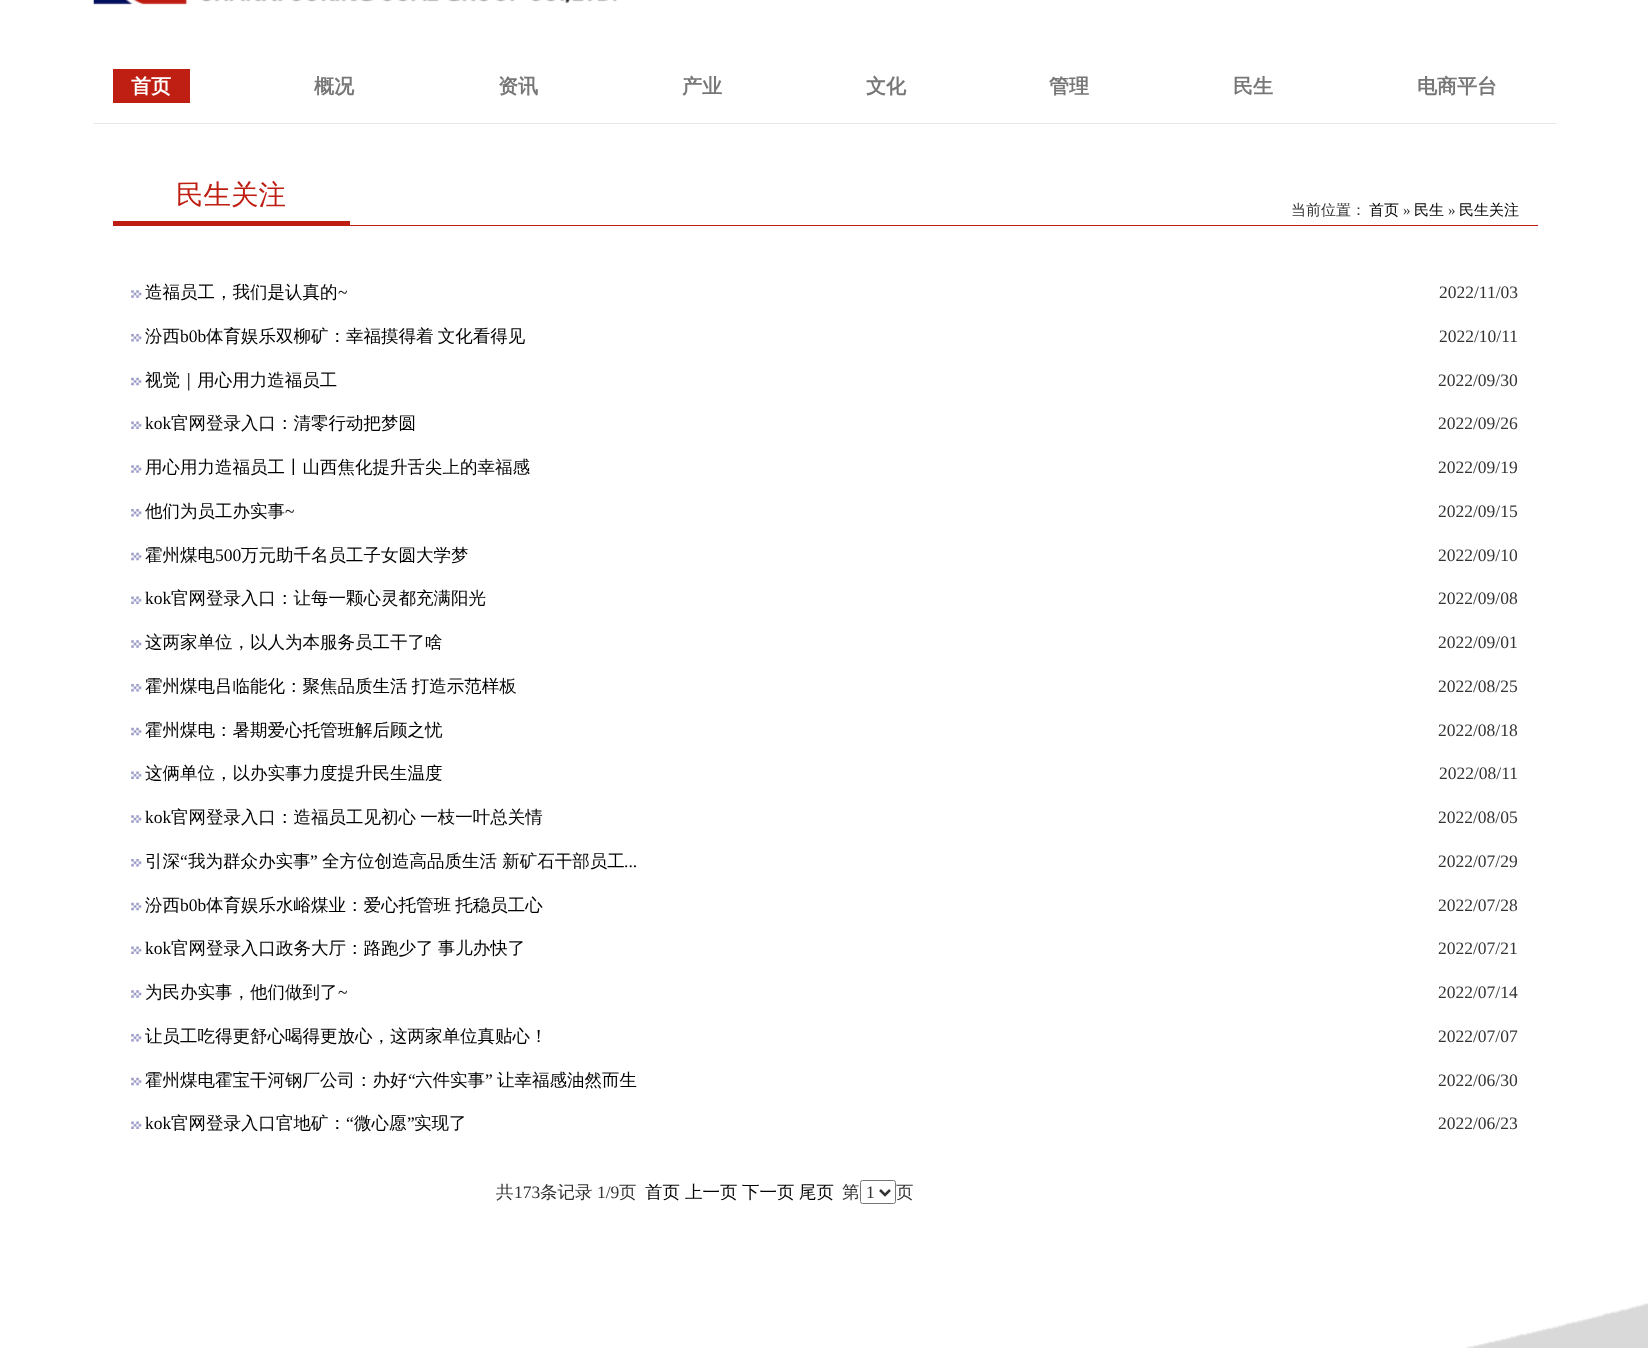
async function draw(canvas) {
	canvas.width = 1648;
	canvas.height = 1348;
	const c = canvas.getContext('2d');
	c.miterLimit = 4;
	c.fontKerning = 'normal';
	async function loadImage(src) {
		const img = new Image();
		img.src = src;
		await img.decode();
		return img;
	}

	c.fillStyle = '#fff';
	c.fillRect(0, 0, 1648, 1348);
	c.drawImage(await loadImage('img1.png'), 93, 0, 524, 5);
	c.fillStyle = '#e7e7e7';
	c.fillRect(94, 123, 1462, 1);
	c.fillStyle = '#bf1f13';
	c.fillRect(113, 69, 77, 34);
	c.font = 'bold 20px WenQuanYi Zen Hei';
	c.fillStyle = '#fff';
	c.fillText('首页', 131, 93);
	c.fillStyle = '#777';
	for (const [text, x, y] of [
		['概况', 314, 93],
		['资讯', 498, 93],
		['产业', 682, 93],
		['文化', 866, 93],
		['管理', 1049, 93],
		['民生', 1233, 93],
		['电商平台', 1417, 93],
	]) {
		c.fillText(text, x, y);
	}
	c.fillStyle = '#be1e12';
	c.fillRect(113, 225, 1425, 1);
	c.fillRect(113, 221, 237, 4);
	c.font = '500 27.5px WenQuanYi Zen Hei';
	c.fillText('民生关注', 176, 204);
	c.font = '500 15px WenQuanYi Zen Hei';
	c.fillStyle = '#333';
	c.fillText('当前位置：', 1291, 215);
	c.fillStyle = '#000';
	c.fillText('首页', 1369, 215);
	c.font = '15px Liberation Serif';
	c.fillStyle = '#333';
	c.fillText('»', 1403, 215);
	c.font = '500 15px WenQuanYi Zen Hei';
	c.fillStyle = '#000';
	c.fillText('民生', 1414, 215);
	c.font = '15px Liberation Serif';
	c.fillStyle = '#333';
	c.fillText('»', 1448, 215);
	c.font = '500 15px WenQuanYi Zen Hei';
	c.fillStyle = '#000';
	c.fillText('民生关注', 1459, 215);
	c.drawImage(await loadImage('img2.png'), 131, 290, 11, 8);
	c.font = '500 17.5px WenQuanYi Zen Hei';
	c.fillText('造福员工，我们是认真的', 145, 298);
	c.font = '17.5px Liberation Serif';
	c.fillText('~', 338, 298);
	c.fillStyle = '#333';
	c.fillText('2022/11/03', 1439, 298);
	c.drawImage(await loadImage('img3.png'), 131, 334, 11, 8);
	c.font = '500 17.5px WenQuanYi Zen Hei';
	c.fillStyle = '#000';
	c.fillText('汾西', 145, 342);
	c.font = '17.5px Liberation Serif';
	c.fillText('b0b', 180, 342);
	c.wordSpacing = '-1px';
	c.font = '500 17.5px WenQuanYi Zen Hei';
	c.fillText('体育娱乐双柳矿：幸福摸得着 文化看得见', 206, 342);
	c.wordSpacing = '0px';
	c.font = '17.5px Liberation Serif';
	c.fillStyle = '#333';
	c.fillText('2022/10/11', 1439, 342);
	c.drawImage(await loadImage('img4.png'), 131, 377, 11, 9);
	c.font = '500 17.5px WenQuanYi Zen Hei';
	c.fillStyle = '#000';
	c.fillText('视觉｜用心用力造福员工', 145, 386);
	c.font = '17.5px Liberation Serif';
	c.fillStyle = '#333';
	c.fillText('2022/09/30', 1438, 386);
	c.drawImage(await loadImage('img5.png'), 131, 421, 11, 8);
	c.fillStyle = '#000';
	c.fillText('kok', 145, 429);
	c.font = '500 17.5px WenQuanYi Zen Hei';
	c.fillText('官网登录入口：清零行动把梦圆', 171, 429);
	c.font = '17.5px Liberation Serif';
	c.fillStyle = '#333';
	c.fillText('2022/09/26', 1438, 429);
	c.drawImage(await loadImage('img2.png'), 131, 465, 11, 8);
	c.font = '500 17.5px WenQuanYi Zen Hei';
	c.fillStyle = '#000';
	c.fillText('用心用力造福员工丨山西焦化提升舌尖上的幸福感', 145, 473);
	c.font = '17.5px Liberation Serif';
	c.fillStyle = '#333';
	c.fillText('2022/09/19', 1438, 473);
	c.drawImage(await loadImage('img3.png'), 131, 509, 11, 8);
	c.font = '500 17.5px WenQuanYi Zen Hei';
	c.fillStyle = '#000';
	c.fillText('他们为员工办实事', 145, 517);
	c.font = '17.5px Liberation Serif';
	c.fillText('~', 285, 517);
	c.fillStyle = '#333';
	c.fillText('2022/09/15', 1438, 517);
	c.drawImage(await loadImage('img4.png'), 131, 552, 11, 9);
	c.font = '500 17.5px WenQuanYi Zen Hei';
	c.fillStyle = '#000';
	c.fillText('霍州煤电', 145, 561);
	c.font = '17.5px Liberation Serif';
	c.fillText('500', 215, 561);
	c.font = '500 17.5px WenQuanYi Zen Hei';
	c.fillText('万元助千名员工子女圆大学梦', 241, 561);
	c.font = '17.5px Liberation Serif';
	c.fillStyle = '#333';
	c.fillText('2022/09/10', 1438, 561);
	c.drawImage(await loadImage('img5.png'), 131, 596, 11, 8);
	c.fillStyle = '#000';
	c.fillText('kok', 145, 604);
	c.font = '500 17.5px WenQuanYi Zen Hei';
	c.fillText('官网登录入口：让每一颗心灵都充满阳光', 171, 604);
	c.font = '17.5px Liberation Serif';
	c.fillStyle = '#333';
	c.fillText('2022/09/08', 1438, 604);
	c.drawImage(await loadImage('img2.png'), 131, 640, 11, 8);
	c.font = '500 17.5px WenQuanYi Zen Hei';
	c.fillStyle = '#000';
	c.fillText('这两家单位，以人为本服务员工干了啥', 145, 648);
	c.font = '17.5px Liberation Serif';
	c.fillStyle = '#333';
	c.fillText('2022/09/01', 1438, 648);
	c.drawImage(await loadImage('img3.png'), 131, 684, 11, 8);
	c.wordSpacing = '-1px';
	c.font = '500 17.5px WenQuanYi Zen Hei';
	c.fillStyle = '#000';
	c.fillText('霍州煤电吕临能化：聚焦品质生活 打造示范样板', 145, 692);
	c.wordSpacing = '0px';
	c.font = '17.5px Liberation Serif';
	c.fillStyle = '#333';
	c.fillText('2022/08/25', 1438, 692);
	c.drawImage(await loadImage('img4.png'), 131, 727, 11, 9);
	c.font = '500 17.5px WenQuanYi Zen Hei';
	c.fillStyle = '#000';
	c.fillText('霍州煤电：暑期爱心托管班解后顾之忧', 145, 736);
	c.font = '17.5px Liberation Serif';
	c.fillStyle = '#333';
	c.fillText('2022/08/18', 1438, 736);
	c.drawImage(await loadImage('img5.png'), 131, 771, 11, 8);
	c.font = '500 17.5px WenQuanYi Zen Hei';
	c.fillStyle = '#000';
	c.fillText('这俩单位，以办实事力度提升民生温度', 145, 779);
	c.font = '17.5px Liberation Serif';
	c.fillStyle = '#333';
	c.fillText('2022/08/11', 1439, 779);
	c.drawImage(await loadImage('img2.png'), 131, 815, 11, 8);
	c.fillStyle = '#000';
	c.fillText('kok', 145, 823);
	c.wordSpacing = '-1px';
	c.font = '500 17.5px WenQuanYi Zen Hei';
	c.fillText('官网登录入口：造福员工见初心 一枝一叶总关情', 171, 823);
	c.wordSpacing = '0px';
	c.font = '17.5px Liberation Serif';
	c.fillStyle = '#333';
	c.fillText('2022/08/05', 1438, 823);
	c.font = '500 17.5px WenQuanYi Zen Hei';
	c.fillStyle = '#000';
	c.fillText('引深', 145, 867);
	c.font = '17.5px Liberation Serif';
	c.fillText('“', 180, 867);
	c.font = '500 17.5px WenQuanYi Zen Hei';
	c.fillText('我为群众办实事', 188, 867);
	c.font = '17.5px Liberation Serif';
	c.fillText('”', 310, 867);
	c.font = '500 17.5px WenQuanYi Zen Hei';
	c.fillText('全方位创造高品质生活 新矿石干部员工', 322, 867);
	c.drawImage(await loadImage('img3.png'), 131, 859, 11, 8);
	c.font = '17.5px Liberation Serif';
	c.fillText('...', 624, 867);
	c.fillStyle = '#333';
	c.fillText('2022/07/29', 1438, 867);
	c.drawImage(await loadImage('img4.png'), 131, 902, 11, 9);
	c.font = '500 17.5px WenQuanYi Zen Hei';
	c.fillStyle = '#000';
	c.fillText('汾西', 145, 911);
	c.font = '17.5px Liberation Serif';
	c.fillText('b0b', 180, 911);
	c.wordSpacing = '-1px';
	c.font = '500 17.5px WenQuanYi Zen Hei';
	c.fillText('体育娱乐水峪煤业：爱心托管班 托稳员工心', 206, 911);
	c.wordSpacing = '0px';
	c.font = '17.5px Liberation Serif';
	c.fillStyle = '#333';
	c.fillText('2022/07/28', 1438, 911);
	c.drawImage(await loadImage('img5.png'), 131, 946, 11, 8);
	c.fillStyle = '#000';
	c.fillText('kok', 145, 954);
	c.wordSpacing = '-1px';
	c.font = '500 17.5px WenQuanYi Zen Hei';
	c.fillText('官网登录入口政务大厅：路跑少了 事儿办快了', 171, 954);
	c.wordSpacing = '0px';
	c.font = '17.5px Liberation Serif';
	c.fillStyle = '#333';
	c.fillText('2022/07/21', 1438, 954);
	c.drawImage(await loadImage('img2.png'), 131, 990, 11, 8);
	c.font = '500 17.5px WenQuanYi Zen Hei';
	c.fillStyle = '#000';
	c.fillText('为民办实事，他们做到了', 145, 998);
	c.font = '17.5px Liberation Serif';
	c.fillText('~', 338, 998);
	c.fillStyle = '#333';
	c.fillText('2022/07/14', 1438, 998);
	c.drawImage(await loadImage('img3.png'), 131, 1034, 11, 8);
	c.font = '500 17.5px WenQuanYi Zen Hei';
	c.fillStyle = '#000';
	c.fillText('让员工吃得更舒心喝得更放心，这两家单位真贴心！', 145, 1042);
	c.font = '17.5px Liberation Serif';
	c.fillStyle = '#333';
	c.fillText('2022/07/07', 1438, 1042);
	c.font = '500 17.5px WenQuanYi Zen Hei';
	c.fillStyle = '#000';
	c.fillText('霍州煤电霍宝干河钢厂公司：办好', 145, 1086);
	c.font = '17.5px Liberation Serif';
	c.fillText('“', 408, 1086);
	c.font = '500 17.5px WenQuanYi Zen Hei';
	c.fillText('六件实事', 415, 1086);
	c.font = '17.5px Liberation Serif';
	c.fillText('”', 485, 1086);
	c.font = '500 17.5px WenQuanYi Zen Hei';
	c.fillText('让幸福感油然而生', 497, 1086);
	c.drawImage(await loadImage('img4.png'), 131, 1077, 11, 9);
	c.font = '17.5px Liberation Serif';
	c.fillStyle = '#333';
	c.fillText('2022/06/30', 1438, 1086);
	c.fillStyle = '#000';
	c.fillText('kok', 145, 1129);
	c.font = '500 17.5px WenQuanYi Zen Hei';
	c.fillText('官网登录入口官地矿：', 171, 1129);
	c.font = '17.5px Liberation Serif';
	c.fillText('“', 346, 1129);
	c.font = '500 17.5px WenQuanYi Zen Hei';
	c.fillText('微心愿', 354, 1129);
	c.font = '17.5px Liberation Serif';
	c.fillText('”', 407, 1129);
	c.font = '500 17.5px WenQuanYi Zen Hei';
	c.fillText('实现了', 414, 1129);
	c.drawImage(await loadImage('img5.png'), 131, 1121, 11, 8);
	c.font = '17.5px Liberation Serif';
	c.fillStyle = '#333';
	c.fillText('2022/06/23', 1438, 1129);
	c.font = '500 17.5px WenQuanYi Zen Hei';
	c.fillText('共', 496, 1198);
	c.font = '17.5px Liberation Serif';
	c.fillText('173', 514, 1198);
	c.font = '500 17.5px WenQuanYi Zen Hei';
	c.fillText('条记录', 540, 1198);
	c.font = '17.5px Liberation Serif';
	c.fillText('1/9', 597, 1198);
	c.font = '500 17.5px WenQuanYi Zen Hei';
	c.fillText('页', 619, 1198);
	c.fillStyle = '#000';
	for (const [text, x, y] of [
		['首页', 645, 1198],
		['上一页', 685, 1198],
		['下一页', 742, 1198],
		['尾页', 799, 1198],
	]) {
		c.fillText(text, x, y);
	}
	c.fillStyle = '#333';
	c.fillText('第', 842, 1198);
	c.beginPath();
	c.roundRect(860.5, 1180.5, 35, 23, 2);
	c.strokeStyle = '#767676';
	c.stroke();
	c.beginPath();
	c.moveTo(880, 1190);
	c.lineTo(885, 1195);
	c.lineTo(890, 1190);
	c.strokeStyle = '#333';
	c.lineWidth = 2.5;
	c.stroke();
	c.font = '17.5px Liberation Serif';
	c.fillText('1', 866, 1198);
	c.font = '500 17.5px WenQuanYi Zen Hei';
	c.fillText('页', 896, 1198);
	c.drawImage(await loadImage('img6.png'), 1465, 1303, 183, 45);
}

draw(document.querySelector('canvas'));
